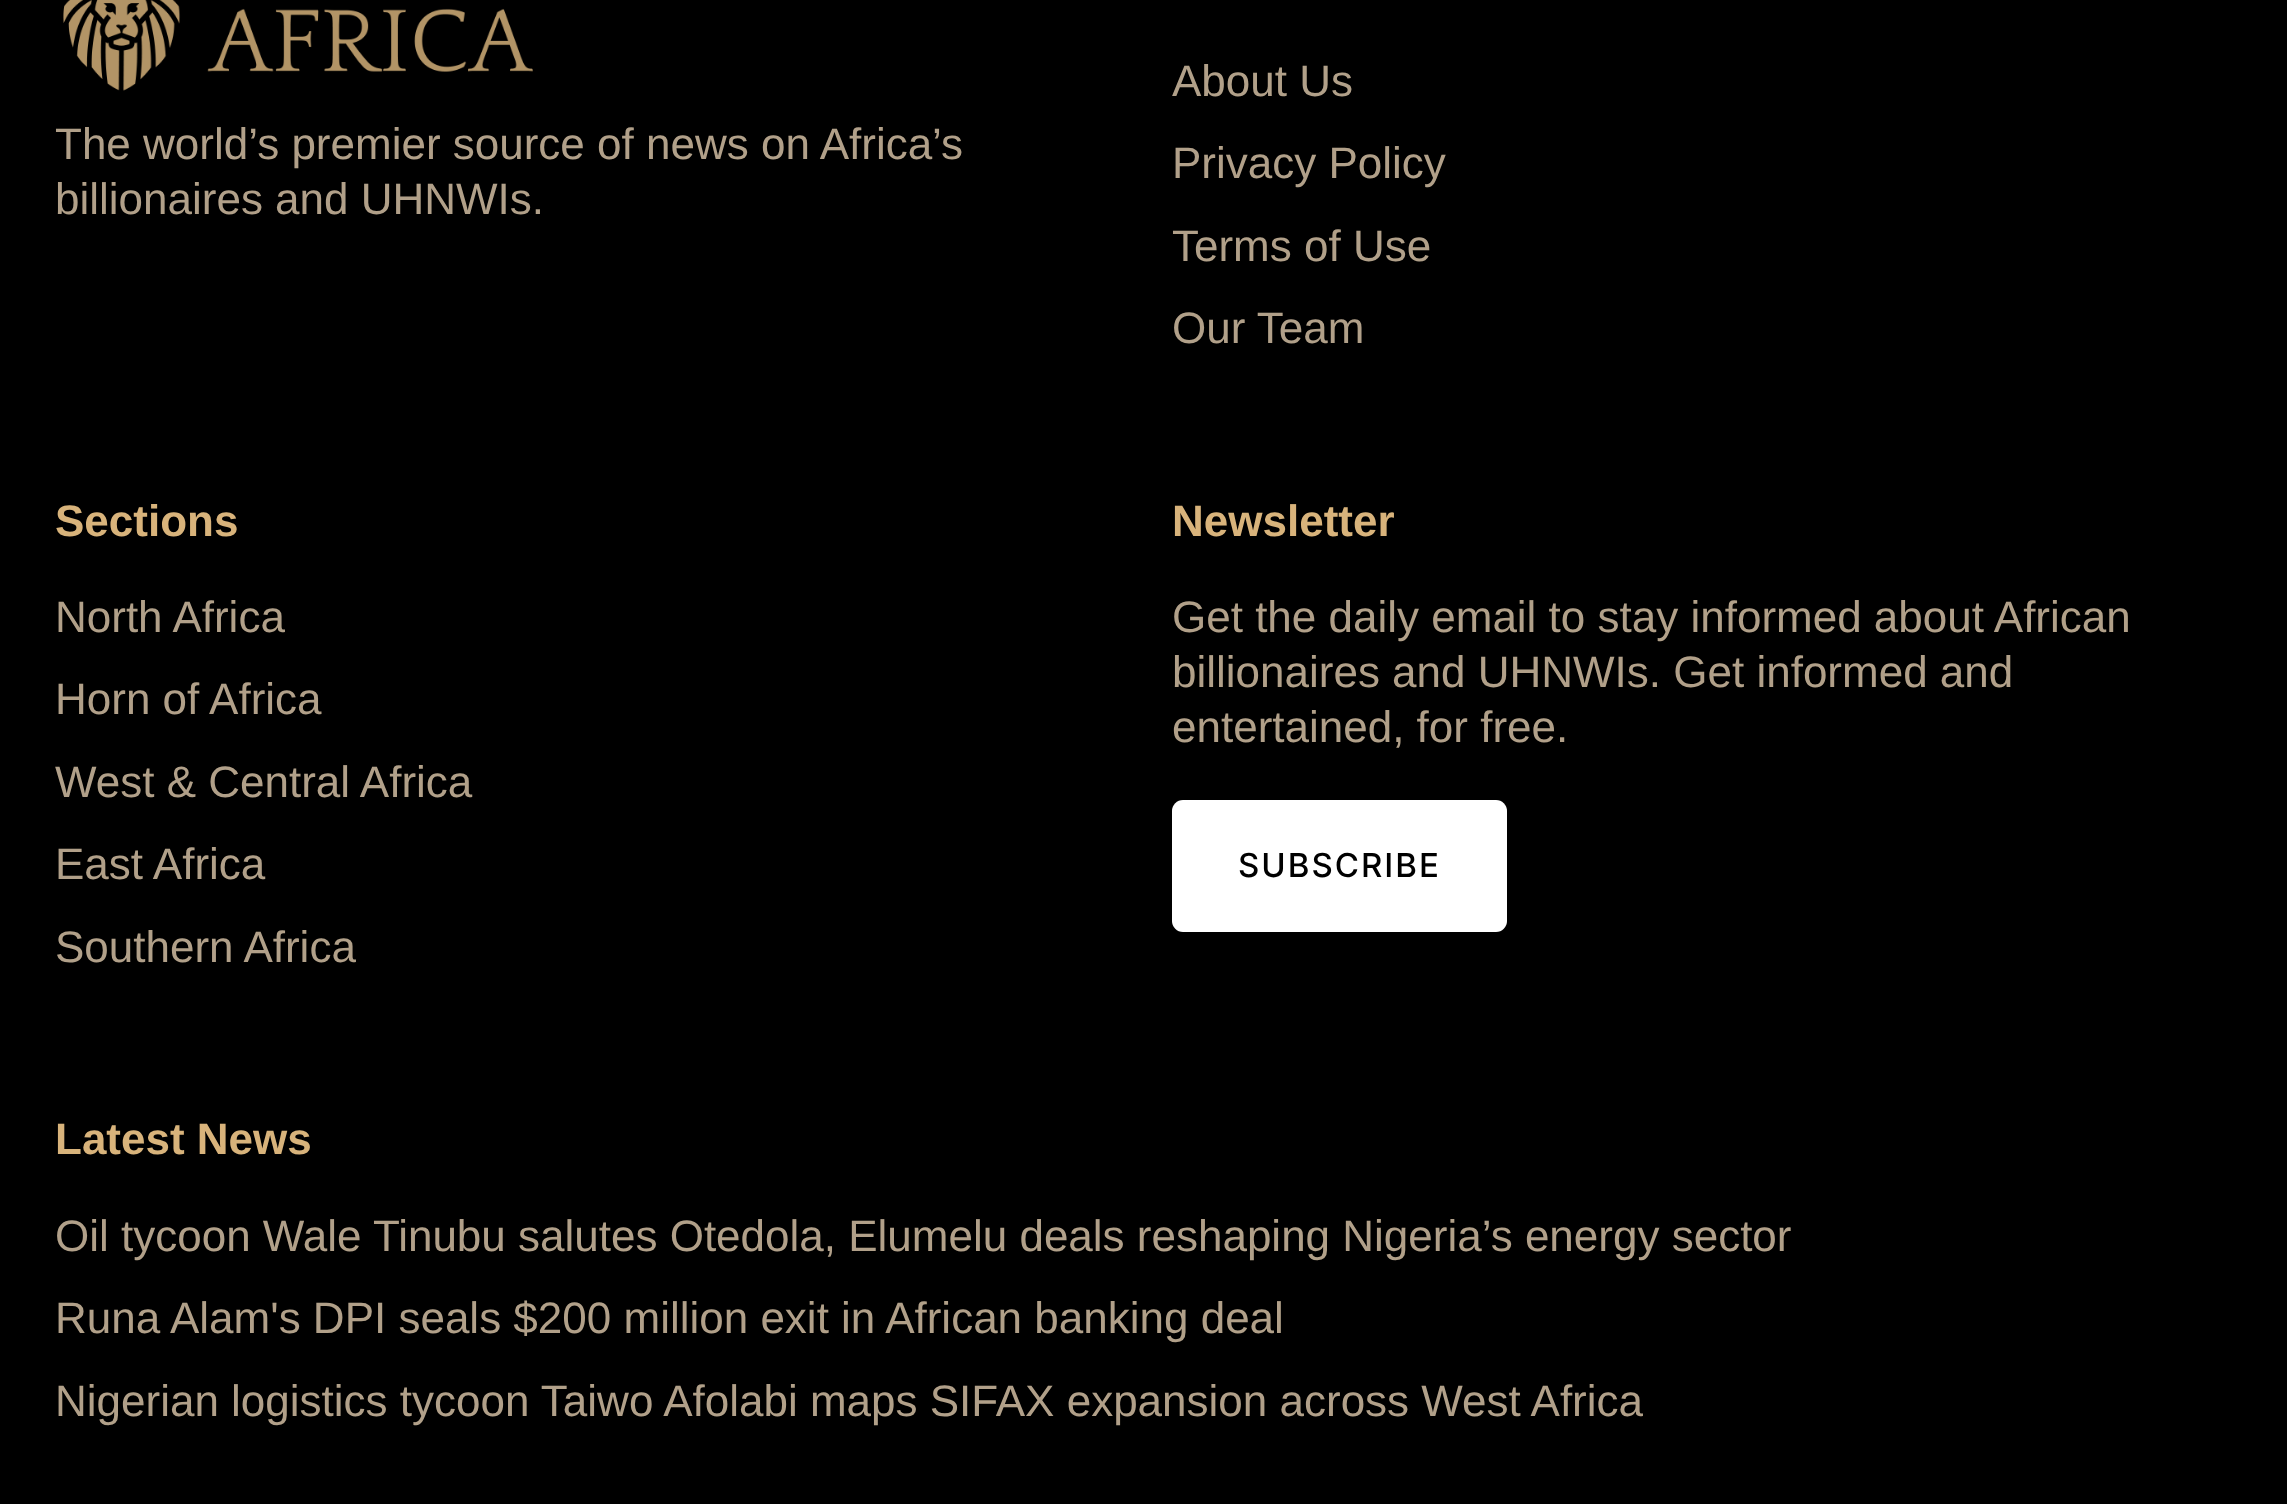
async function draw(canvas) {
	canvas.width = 2287;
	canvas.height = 1504;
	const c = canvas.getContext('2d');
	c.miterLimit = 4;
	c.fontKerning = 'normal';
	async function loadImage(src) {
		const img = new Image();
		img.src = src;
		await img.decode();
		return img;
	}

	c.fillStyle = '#000';
	c.fillRect(0, 0, 2287, 1504);
	c.drawImage(await loadImage('img1.png'), 63, 0, 470, 91);
	c.font = '44px Liberation Sans';
	c.fillStyle = '#b1a089';
	for (const [text, x, y] of [
		['The world’s premier source of news on Africa’s', 55, 159],
		['billionaires and UHNWIs.', 55, 214],
		['About Us', 1172, 96],
		['Privacy Policy', 1172, 178],
		['Terms of Use', 1172, 261],
		['Our Team', 1172, 343],
	]) {
		c.fillText(text, x, y);
	}
	c.font = 'bold 44px Liberation Sans';
	c.fillStyle = '#d8b37b';
	c.fillText('Sections', 55, 536);
	c.font = '44px Liberation Sans';
	c.fillStyle = '#b1a089';
	for (const [text, x, y] of [
		['North Africa', 55, 632],
		['Horn of Africa', 55, 714],
		['West & Central Africa', 55, 797],
		['East Africa', 55, 879],
		['Southern Africa', 55, 962],
	]) {
		c.fillText(text, x, y);
	}
	c.font = 'bold 44px Liberation Sans';
	c.fillStyle = '#d8b37b';
	c.fillText('Newsletter', 1172, 536);
	c.font = '44px Liberation Sans';
	c.fillStyle = '#b1a089';
	for (const [text, x, y] of [
		['Get the daily email to stay informed about African', 1172, 632],
		['billionaires and UHNWIs. Get informed and', 1172, 687],
		['entertained, for free.', 1172, 742],
	]) {
		c.fillText(text, x, y);
	}
	c.fillStyle = '#fff';
	c.beginPath();
	c.roundRect(1172, 800, 335, 132, 11);
	c.fill();
	c.letterSpacing = '2px';
	c.font = '500 33px Inter';
	c.fillStyle = '#000';
	c.fillText('SUBSCRIBE', 1238, 877);
	c.letterSpacing = '0px';
	c.font = 'bold 44px Liberation Sans';
	c.fillStyle = '#d8b37b';
	c.fillText('Latest News', 55, 1154);
	c.font = '44px Liberation Sans';
	c.fillStyle = '#b1a089';
	for (const [text, x, y] of [
		['Oil tycoon Wale Tinubu salutes Otedola, Elumelu deals reshaping Nigeria’s energy sector', 55, 1251],
		['Runa Alam\'s DPI seals $200 million exit in African banking deal', 55, 1333],
		['Nigerian logistics tycoon Taiwo Afolabi maps SIFAX expansion across West Africa', 55, 1416],
	]) {
		c.fillText(text, x, y);
	}
}

draw(document.querySelector('canvas'));
